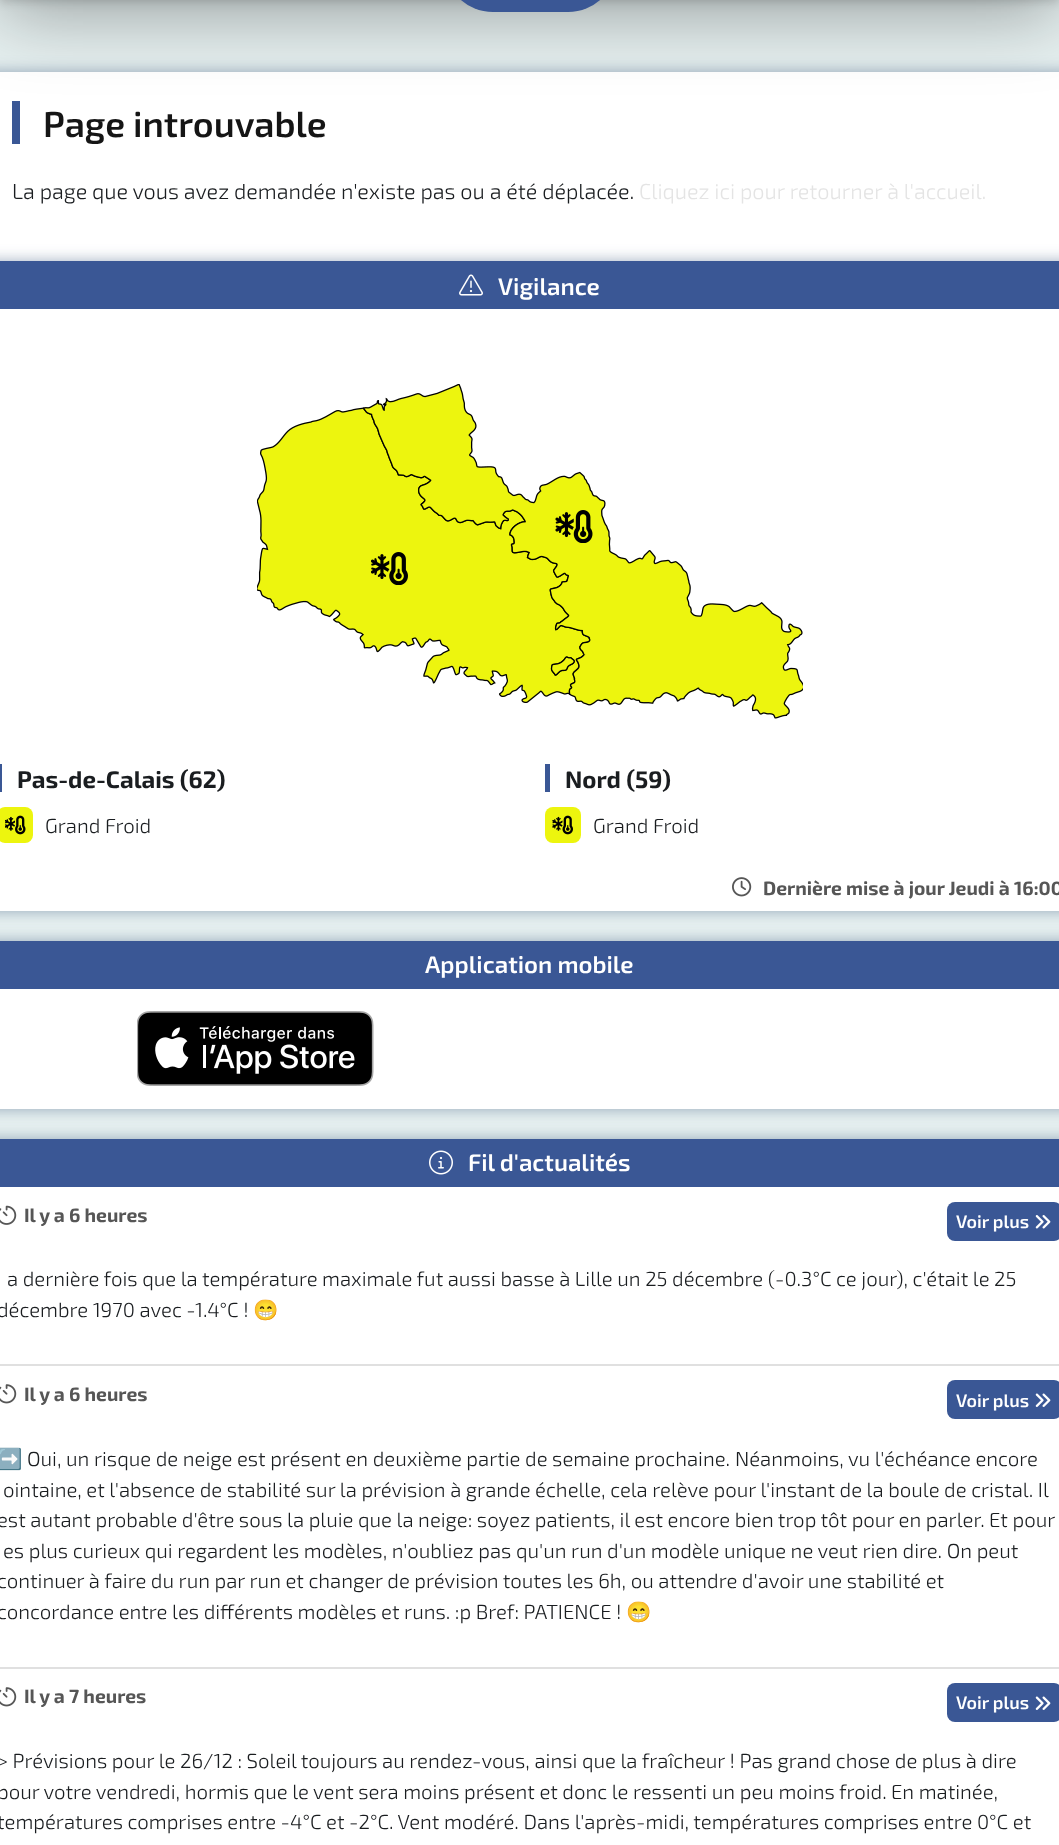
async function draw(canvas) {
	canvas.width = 1059;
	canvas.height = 1845;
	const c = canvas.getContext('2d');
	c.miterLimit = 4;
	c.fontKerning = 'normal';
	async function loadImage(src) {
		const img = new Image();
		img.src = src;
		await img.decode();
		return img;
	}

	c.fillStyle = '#e6f0f0';
	c.fillRect(0, 0, 1059, 1845);
	c.fillStyle = '#1f3d6b6b';
	c.filter = 'blur(7.5px)';
	c.beginPath();
	c.rect(-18, 72, 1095, 189);
	c.fill();
	c.filter = 'none';
	c.fillStyle = '#fff';
	c.fillRect(0, 72, 1059, 189);
	c.fillStyle = '#3a5795';
	c.fillRect(12, 101, 8, 43);
	c.fillStyle = '#00000059';
	c.filter = 'blur(37.5px)';
	c.beginPath();
	c.rect(0, -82, 1059, 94);
	c.fill();
	c.filter = 'none';
	c.fillStyle = '#00000026';
	c.filter = 'blur(5px)';
	c.beginPath();
	c.rect(0, -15, 1059, 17);
	c.fill();
	c.filter = 'none';
	c.fillStyle = '#3a5795';
	c.beginPath();
	c.roundRect(444, -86, 173, 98, 86);
	c.fill();
	c.font = '600 36px "Exo 2"';
	c.fillStyle = '#151515';
	c.fillText('Page introuvable', 43, 137);
	c.font = '300 21.6px "Exo 2"';
	c.fillStyle = '#1a1d20';
	c.fillText('La page que vous avez demandée n\'existe pas ou a été déplacée.', 12, 199);
	c.fillStyle = '#e4e4e4';
	c.fillText('Cliquez ici pour retourner à l\'accueil.', 639, 199);
	c.fillStyle = '#1f3d6b6b';
	c.filter = 'blur(7.5px)';
	c.beginPath();
	c.rect(-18, 261, 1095, 650);
	c.fill();
	c.filter = 'none';
	c.fillStyle = '#fff';
	c.fillRect(0, 309, 1059, 602);
	c.fillStyle = '#3a5795';
	c.fillRect(0, 261, 1059, 48);
	c.drawImage(await loadImage('img1.png'), 459, 274, 24, 22);
	c.font = '600 24px "Exo 2"';
	c.fillStyle = '#fff';
	c.fillText('Vigilance', 498, 295);
	c.drawImage(await loadImage('img2.png'), 257, 384, 546, 335);
	c.drawImage(await loadImage('img3.png'), 555, 510, 38, 33);
	c.drawImage(await loadImage('img4.png'), 371, 552, 37, 33);
	c.fillStyle = '#3a5795';
	c.fillRect(0, 764, 2, 28);
	c.font = 'bold 24px "Exo 2"';
	c.fillStyle = '#1a1d20';
	c.fillText('Pas-de-Calais (62)', 17, 788);
	c.fillStyle = '#edf50e';
	c.beginPath();
	c.roundRect(-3, 807, 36, 36, 8);
	c.fill();
	c.drawImage(await loadImage('img5.png'), 5, 815, 21, 20);
	c.font = '300 20.4px "Exo 2"';
	c.fillStyle = '#1a1d20';
	c.fillText('Grand Froid', 45, 833);
	c.fillStyle = '#3a5795';
	c.fillRect(545, 764, 5, 28);
	c.font = 'bold 24px "Exo 2"';
	c.fillStyle = '#1a1d20';
	c.fillText('Nord (59)', 565, 788);
	c.fillStyle = '#edf50e';
	c.beginPath();
	c.roundRect(545, 807, 36, 36, 8);
	c.fill();
	c.drawImage(await loadImage('img6.png'), 552, 815, 21, 20);
	c.font = '300 20.4px "Exo 2"';
	c.fillStyle = '#1a1d20';
	c.fillText('Grand Froid', 593, 833);
	c.drawImage(await loadImage('img7.png'), 732, 877, 20, 20);
	c.font = 'bold 19.25px "Exo 2"';
	c.fillStyle = '#565656';
	c.fillText('Dernière mise à jour Jeudi à 16:00', 763, 895);
	c.fillStyle = '#1f3d6b6b';
	c.filter = 'blur(7.5px)';
	c.beginPath();
	c.rect(-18, 941, 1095, 168);
	c.fill();
	c.filter = 'none';
	c.fillStyle = '#fff';
	c.fillRect(0, 989, 1059, 120);
	c.fillStyle = '#3a5795';
	c.fillRect(0, 941, 1059, 48);
	c.font = '600 24px "Exo 2"';
	c.fillStyle = '#fff';
	c.fillText('Application mobile', 425, 973);
	c.drawImage(await loadImage('img8.png'), 137, 1011, 237, 75);
	c.fillStyle = '#1f3d6b6b';
	c.filter = 'blur(7.5px)';
	c.beginPath();
	c.rect(-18, 1139, 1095, 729);
	c.fill();
	c.filter = 'none';
	c.fillStyle = '#fff';
	c.fillRect(0, 1187, 1059, 658);
	c.fillStyle = '#3a5795';
	c.fillRect(0, 1139, 1059, 48);
	c.drawImage(await loadImage('img9.png'), 429, 1150, 24, 25);
	c.fillStyle = '#fff';
	c.fillText('Fil d\'actualités', 468, 1171);
	c.fillStyle = '#e0e0e0';
	c.fillRect(0, 1364, 1059, 2);
	c.drawImage(await loadImage('img10.png'), 0, 1205, 17, 20);
	c.font = 'bold 19.25px "Exo 2"';
	c.fillStyle = '#565656';
	c.fillText('Il y a 6 heures', 24, 1222);
	c.fillStyle = '#3a5795';
	c.beginPath();
	c.roundRect(947, 1202, 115, 39, 8);
	c.fill();
	c.font = '600 18px "Exo 2"';
	c.fillStyle = '#fff';
	c.fillText('Voir plus', 956, 1228);
	c.drawImage(await loadImage('img11.png'), 1035, 1215, 16, 14);
	c.font = '300 20.4px "Exo 2"';
	c.fillStyle = '#1a1d20';
	c.fillText('a dernière fois que la température maximale fut aussi basse à Lille un 25 décembre (-0.3°C ce jour), c\'était le 25', 7, 1286);
	c.fillText('décembre 1970 avec -1.4°C !', -3, 1317);
	c.font = '20.4px Noto Color Emoji';
	c.fillText('😁', 253, 1317);
	c.fillStyle = '#e0e0e0';
	c.fillRect(0, 1667, 1059, 2);
	c.drawImage(await loadImage('img12.png'), 0, 1384, 17, 20);
	c.font = 'bold 19.25px "Exo 2"';
	c.fillStyle = '#565656';
	c.fillText('Il y a 6 heures', 24, 1401);
	c.fillStyle = '#3a5795';
	c.beginPath();
	c.roundRect(947, 1380, 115, 39, 8);
	c.fill();
	c.font = '600 18px "Exo 2"';
	c.fillStyle = '#fff';
	c.fillText('Voir plus', 956, 1407);
	c.drawImage(await loadImage('img13.png'), 1035, 1393, 16, 14);
	c.font = '20.4px Noto Color Emoji';
	c.fillStyle = '#1a1d20';
	c.fillText('➡️', -3, 1466);
	c.font = '300 20.4px "Exo 2"';
	for (const [text, x, y] of [
		['Oui, un risque de neige est présent en deuxième partie de semaine prochaine.', 27, 1466],
		['Néanmoins, vu l\'échéance encore', 735, 1466],
		['ointaine, et l\'absence de stabilité sur la prévision à grande échelle, cela relève pour l\'instant de la boule de cristal. Il', 3, 1497],
		['est autant probable d\'être sous la pluie que la neige: soyez patients, il est encore bien trop tôt pour en parler.', -3, 1527],
		['Et pour', 989, 1527],
		['es plus curieux qui regardent les modèles, n\'oubliez pas qu\'un run d\'un modèle unique ne veut rien dire. On peut', 3, 1558],
		['continuer à faire du run par run et changer de prévision toutes les 6h, ou attendre d\'avoir une stabilité et', -3, 1588],
		['concordance entre les différents modèles et runs. :p Bref: PATIENCE !', -3, 1619],
	]) {
		c.fillText(text, x, y);
	}
	c.font = '20.4px Noto Color Emoji';
	c.fillText('😁', 626, 1619);
	c.drawImage(await loadImage('img12.png'), 0, 1687, 17, 20);
	c.font = 'bold 19.25px "Exo 2"';
	c.fillStyle = '#565656';
	c.fillText('Il y a 7 heures', 24, 1703);
	c.fillStyle = '#3a5795';
	c.beginPath();
	c.roundRect(947, 1683, 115, 39, 8);
	c.fill();
	c.font = '600 18px "Exo 2"';
	c.fillStyle = '#fff';
	c.fillText('Voir plus', 956, 1709);
	c.drawImage(await loadImage('img13.png'), 1035, 1696, 16, 14);
	c.font = '300 20.4px "Exo 2"';
	c.fillStyle = '#1a1d20';
	for (const [text, x, y] of [
		['> Prévisions pour le 26/12 : Soleil toujours au rendez-vous, ainsi que la fraîcheur ! Pas grand chose de plus à dire', -3, 1768],
		['pour votre vendredi, hormis que le vent sera moins présent et donc le ressenti un peu moins froid.', -3, 1799],
		['En matinée,', 891, 1799],
		['températures comprises entre -4°C et -2°C. Vent modéré. Dans l\'après-midi, températures comprises entre 0°C et', -3, 1829],
	]) {
		c.fillText(text, x, y);
	}
}

draw(document.querySelector('canvas'));
